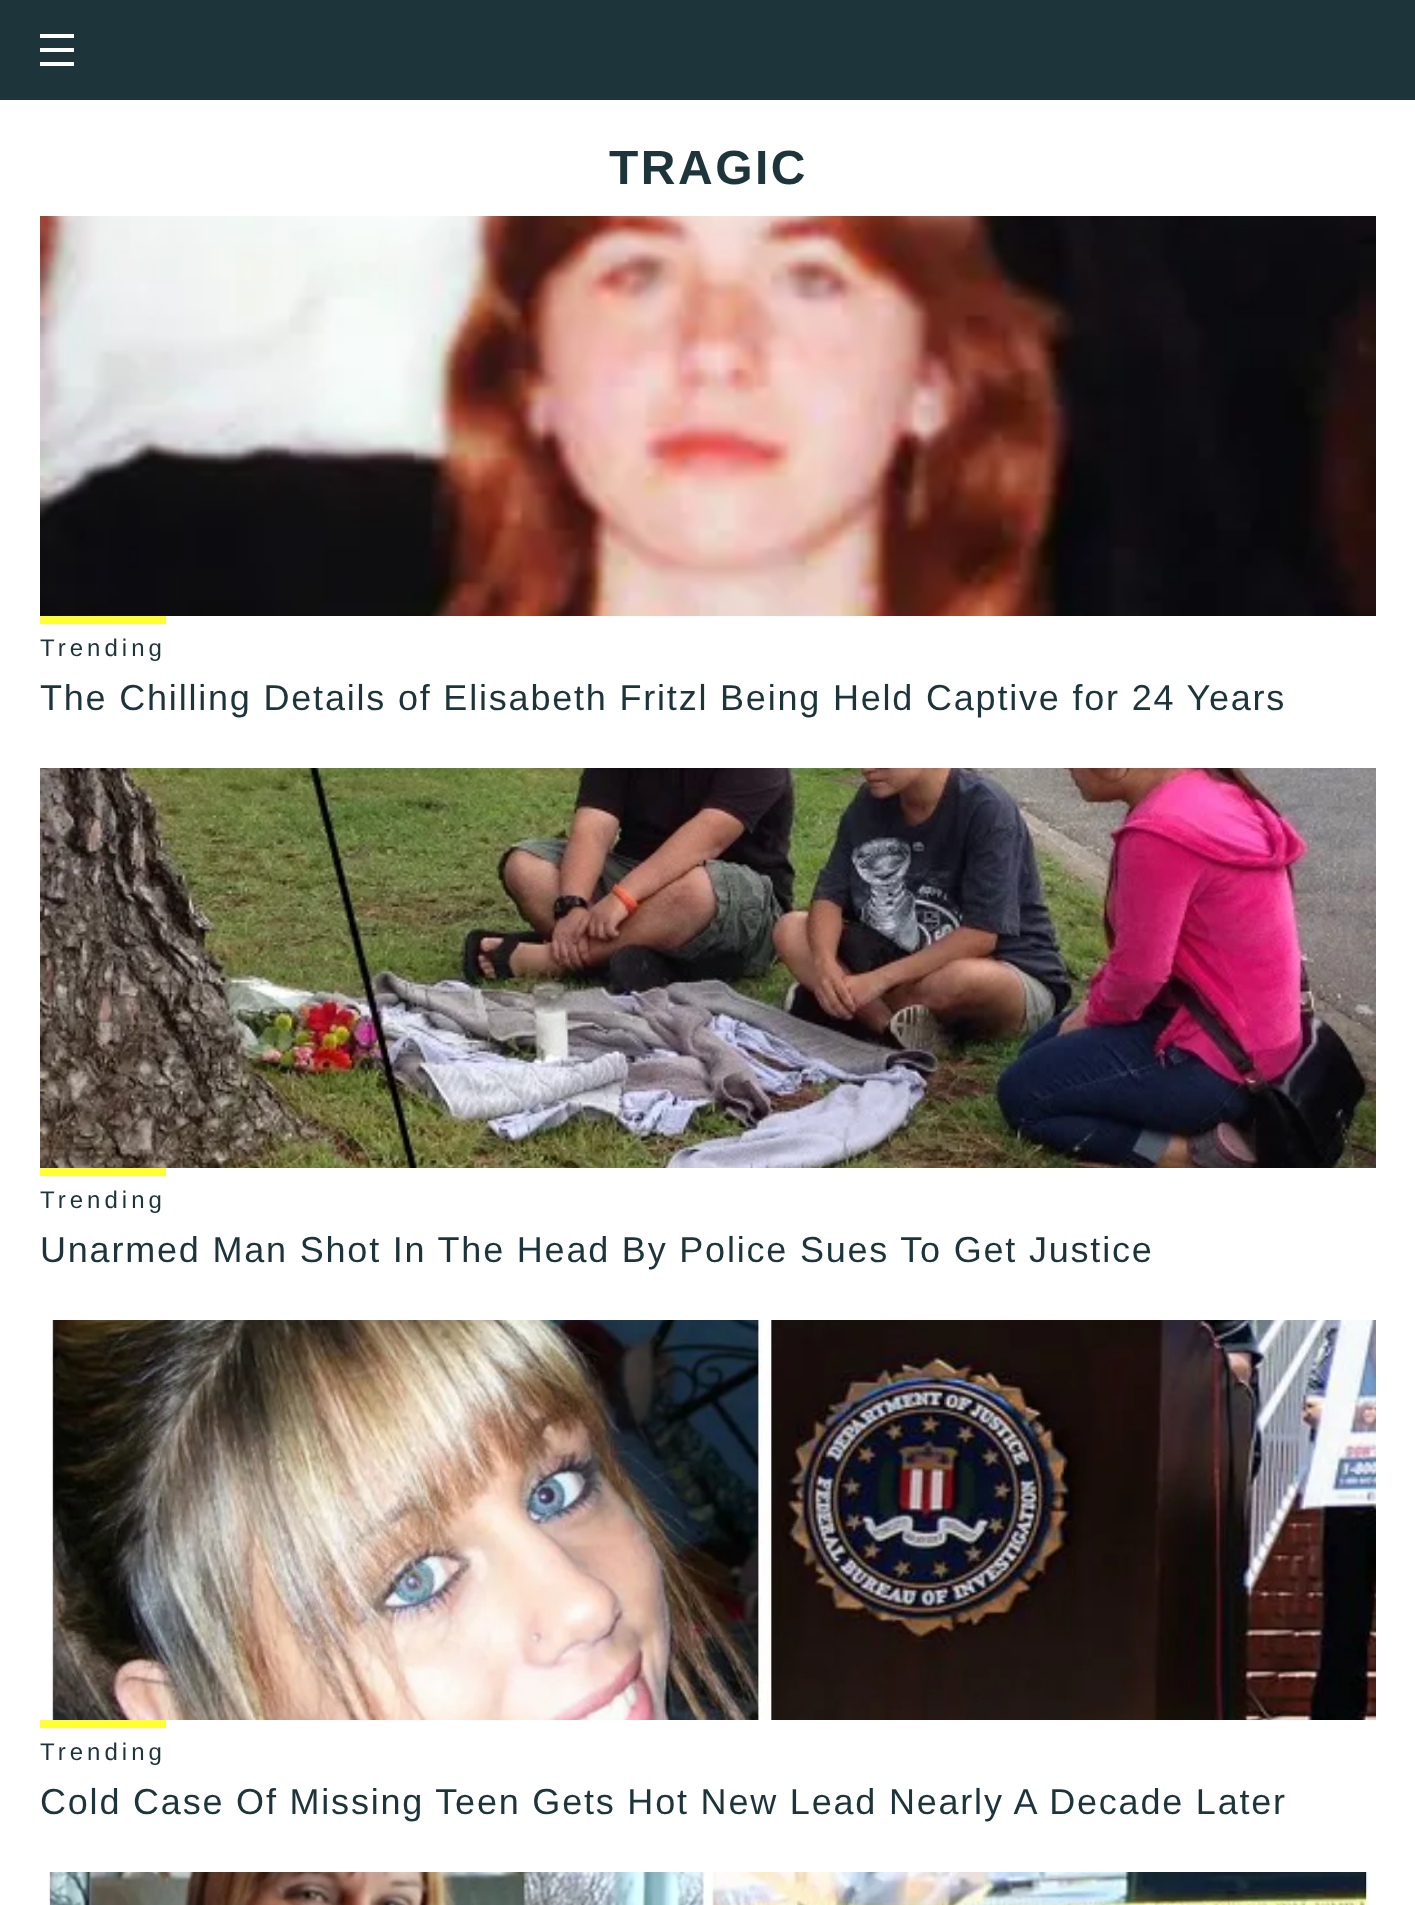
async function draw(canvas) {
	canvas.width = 1415;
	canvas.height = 1905;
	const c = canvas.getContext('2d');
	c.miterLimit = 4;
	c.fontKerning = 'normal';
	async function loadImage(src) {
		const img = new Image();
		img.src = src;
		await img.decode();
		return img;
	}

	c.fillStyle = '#fff';
	c.fillRect(0, 0, 1415, 1905);
	for (const [x, y, w, h, color] of [
		[0, 0, 1415, 100, '#1d353a'],
		[40, 34, 34, 4, '#fff'],
		[40, 48, 34, 4, '#fff'],
		[40, 62, 34, 4, '#fff'],
	]) {
		c.fillStyle = color;
		c.fillRect(x, y, w, h);
	}
	c.letterSpacing = '2.5px';
	c.font = 'bold 48px Liberation Sans';
	c.fillStyle = '#1d353a';
	c.fillText('TRAGIC', 609, 184);
	c.drawImage(await loadImage('img1.png'), 40, 216, 1336, 400);
	c.fillStyle = '#ff3';
	c.fillRect(40, 616, 126, 8);
	c.letterSpacing = '4px';
	c.font = '24px Liberation Sans';
	c.fillStyle = '#1d353a';
	c.fillText('Trending', 40, 656);
	c.letterSpacing = '1.8px';
	c.font = '36px Liberation Sans';
	c.fillText('The Chilling Details of Elisabeth Fritzl Being Held Captive for 24 Years', 40, 710);
	c.drawImage(await loadImage('img2.png'), 40, 768, 1336, 400);
	c.fillStyle = '#ff3';
	c.fillRect(40, 1168, 126, 8);
	c.letterSpacing = '4px';
	c.font = '24px Liberation Sans';
	c.fillStyle = '#1d353a';
	c.fillText('Trending', 40, 1208);
	c.letterSpacing = '1.8px';
	c.font = '36px Liberation Sans';
	c.fillText('Unarmed Man Shot In The Head By Police Sues To Get Justice', 40, 1262);
	c.drawImage(await loadImage('img3.png'), 50, 1320, 1326, 400);
	c.fillStyle = '#ff3';
	c.fillRect(40, 1720, 126, 8);
	c.letterSpacing = '4px';
	c.font = '24px Liberation Sans';
	c.fillStyle = '#1d353a';
	c.fillText('Trending', 40, 1760);
	c.letterSpacing = '1.8px';
	c.font = '36px Liberation Sans';
	c.fillText('Cold Case Of Missing Teen Gets Hot New Lead Nearly A Decade Later', 40, 1814);
	c.drawImage(await loadImage('img4.png'), 48, 1872, 1323, 33);
}

draw(document.querySelector('canvas'));
